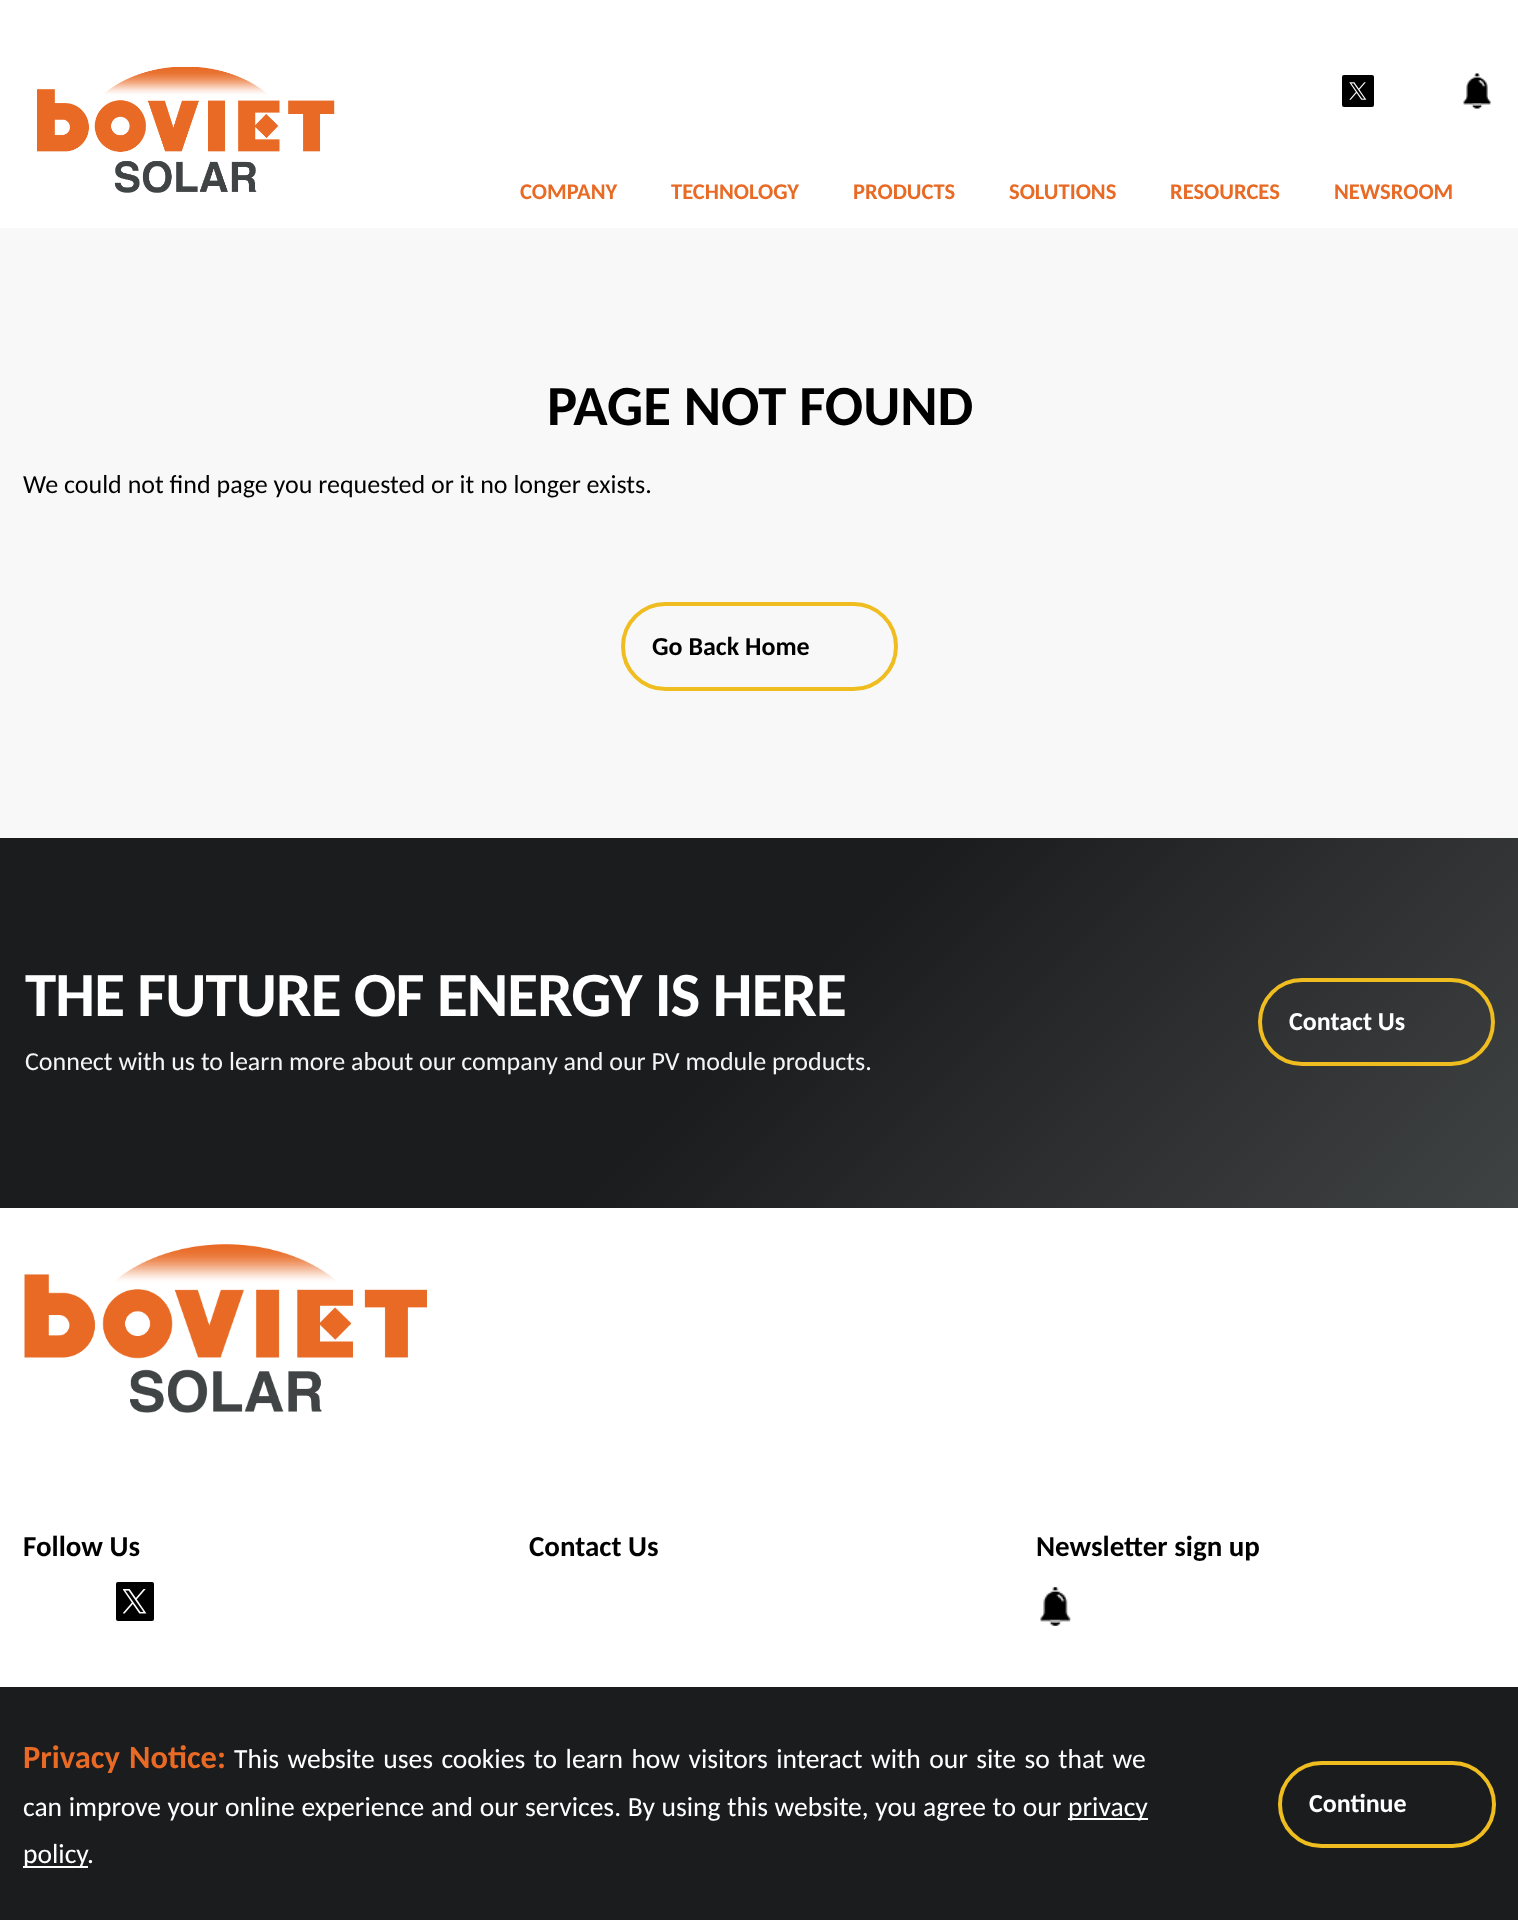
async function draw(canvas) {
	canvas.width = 1518;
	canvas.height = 1920;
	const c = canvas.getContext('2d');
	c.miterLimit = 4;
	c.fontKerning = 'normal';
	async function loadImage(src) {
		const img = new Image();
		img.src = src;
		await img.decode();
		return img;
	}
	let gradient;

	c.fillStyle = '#fff';
	c.fillRect(0, 0, 1518, 1920);
	c.drawImage(await loadImage('img1.png'), 37, 67, 298, 126);
	c.fillStyle = '#000';
	c.beginPath();
	c.roundRect(1342, 75, 32, 32, 2);
	c.fill();
	c.drawImage(await loadImage('img2.png'), 1349, 82, 18, 18);
	c.drawImage(await loadImage('img3.png'), 1463, 73, 28, 36);
	c.font = 'bold 22.5px Carlito';
	c.fillStyle = '#e86a25';
	for (const [text, x, y] of [
		['COMPANY', 520, 199],
		['TECHNOLOGY', 671, 199],
		['PRODUCTS', 853, 199],
		['SOLUTIONS', 1009, 199],
		['RESOURCES', 1170, 199],
		['NEWSROOM', 1334, 199],
	]) {
		c.fillText(text, x, y);
	}
	c.fillStyle = '#f8f8f8';
	c.fillRect(0, 228, 1518, 610);
	c.font = 'bold 56.75px Carlito';
	c.fillStyle = '#000';
	c.fillText('PAGE NOT FOUND', 547, 425);
	c.font = '26px Carlito';
	c.fillText('We could not find page you requested or it no longer exists.', 23, 493);
	c.beginPath();
	c.roundRect(623, 604, 273, 85, 42.5);
	c.strokeStyle = '#efbd20';
	c.lineWidth = 4;
	c.stroke();
	c.font = 'bold 26px Carlito';
	c.fillText('Go Back Home', 652, 655);
	gradient = c.createLinearGradient(1232, 1495, 287, 551);
	gradient.addColorStop(0, '#404344');
	gradient.addColorStop(0.5, '#1b1c1e');
	c.fillStyle = gradient;
	c.fillRect(0, 838, 1518, 370);
	c.letterSpacing = '-0.9px';
	c.font = 'bold 63px Carlito';
	c.fillStyle = '#fff';
	c.fillText('THE FUTURE OF ENERGY IS HERE', 25, 1016);
	c.letterSpacing = '0px';
	c.font = '26px Carlito';
	c.fillStyle = '#f5f5f5';
	c.fillText('Connect with us to learn more about our company and our PV module products.', 25, 1070);
	c.beginPath();
	c.roundRect(1260, 980, 233, 84, 42);
	c.stroke();
	c.font = 'bold 26px Carlito';
	c.fillStyle = '#fff';
	c.fillText('Contact Us', 1289, 1030);
	c.drawImage(await loadImage('img4.png'), 24, 1244, 403, 169);
	c.font = 'bold 29px Carlito';
	c.fillStyle = '#000';
	c.fillText('Follow Us', 23, 1556);
	c.beginPath();
	c.roundRect(116, 1582, 38, 39, 2);
	c.fill();
	c.drawImage(await loadImage('img5.png'), 123, 1589, 24, 25);
	c.fillText('Contact Us', 529, 1556);
	c.fillText('Newsletter sign up', 1036, 1556);
	c.drawImage(await loadImage('img6.png'), 1040, 1587, 31, 39);
	c.fillStyle = '#1b1c1e';
	c.fillRect(0, 1687, 1518, 233);
	c.wordSpacing = '2px';
	c.font = 'bold 32.5px Carlito';
	c.fillStyle = '#e86a25';
	c.fillText('Privacy Notice:', 23, 1768);
	c.wordSpacing = '2.25px';
	c.font = '27.55px Carlito';
	c.fillStyle = '#fff';
	c.fillText('This website uses cookies to learn how visitors interact with our site so that we', 234, 1768);
	c.wordSpacing = '0.4px';
	c.fillText('can improve your online experience and our services. By using this website, you agree to our', 23, 1816);
	c.fillRect(1068, 1818, 80, 2);
	c.wordSpacing = '0px';
	c.fillText('privacy', 1068, 1816);
	c.fillRect(23, 1866, 65, 2);
	c.fillText('policy', 23, 1863);
	c.fillText('.', 87, 1863);
	c.beginPath();
	c.roundRect(1280, 1763, 214, 83, 41.5);
	c.stroke();
	c.font = 'bold 26px Carlito';
	c.fillText('Continue', 1309, 1812);
}

draw(document.querySelector('canvas'));
